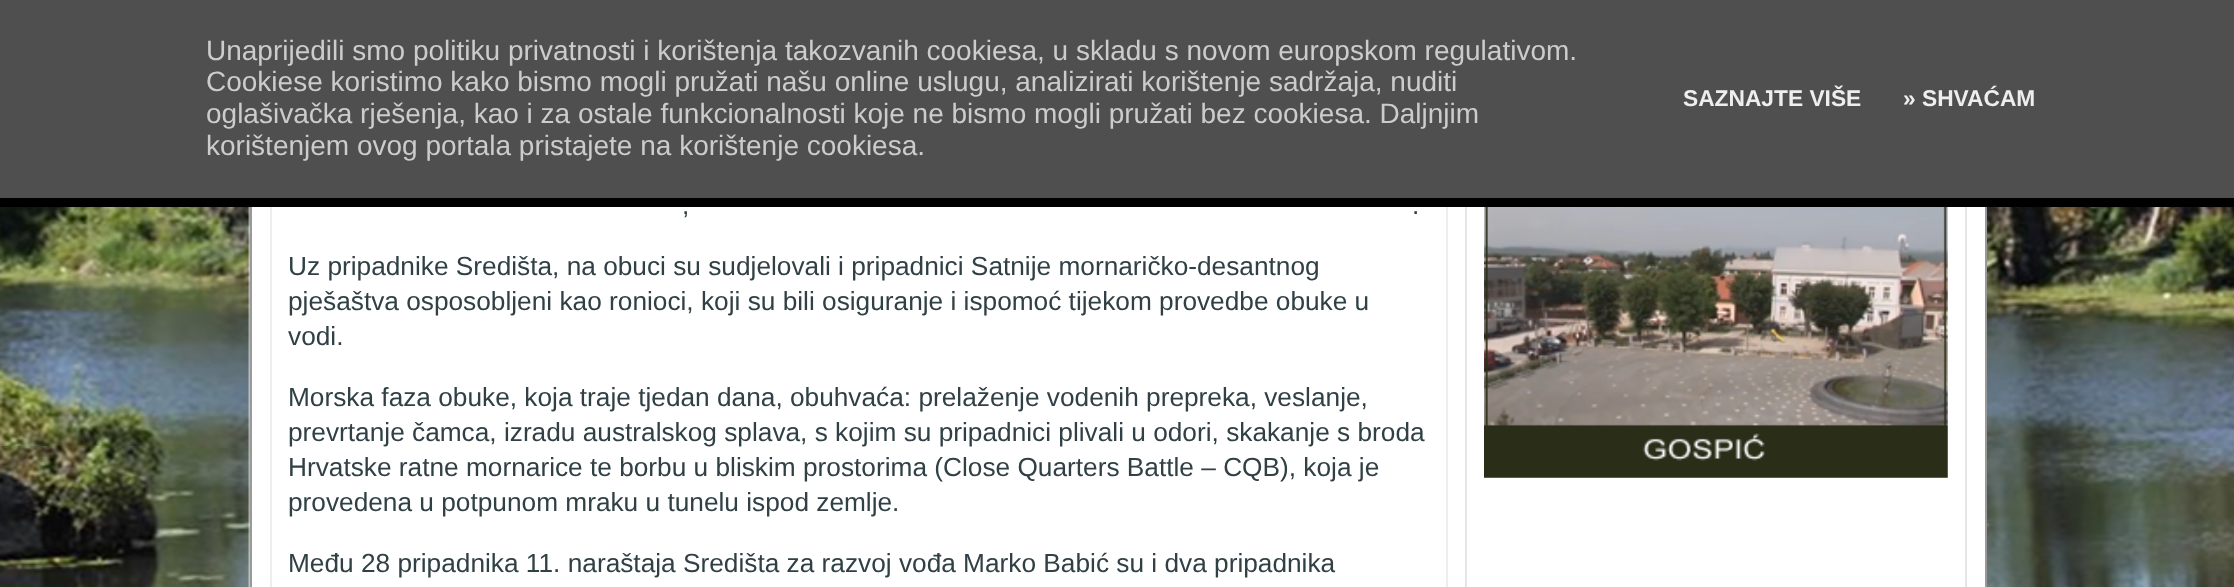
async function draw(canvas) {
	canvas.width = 2234;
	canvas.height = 587;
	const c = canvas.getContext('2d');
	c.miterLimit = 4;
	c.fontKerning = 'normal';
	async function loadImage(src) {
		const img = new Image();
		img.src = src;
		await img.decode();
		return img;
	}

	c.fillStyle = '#fff';
	c.fillRect(0, 0, 2234, 587);
	c.drawImage(await loadImage('img1.png'), 0, 207, 2234, 380);
	c.strokeStyle = '#e5e6e9';
	c.lineWidth = 2;
	c.strokeRect(1466, -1, 500, 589);
	c.fillStyle = '#4f4f4f';
	c.fillRect(0, 0, 2234, 198);
	c.fillStyle = '#000';
	c.fillRect(0, 198, 2234, 9);
	c.font = '28px Liberation Sans';
	c.fillStyle = '#ccc';
	for (const [text, x, y] of [
		['Unaprijedili smo politiku privatnosti i korištenja takozvanih cookiesa, u skladu s novom europskom regulativom.', 206, 60],
		['Cookiese koristimo kako bismo mogli pružati našu online uslugu, analizirati korištenje sadržaja, nuditi', 206, 91],
		['oglašivačka rješenja, kao i za ostale funkcionalnosti koje ne bismo mogli pružati bez cookiesa. Daljnjim', 206, 123],
		['korištenjem ovog portala pristajete na korištenje cookiesa.', 206, 155],
	]) {
		c.fillText(text, x, y);
	}
	c.font = 'bold 22.75px Liberation Sans';
	c.fillStyle = '#eee';
	c.fillText('SAZNAJTE VIŠE', 1683, 106);
	c.fillText('» SHVAĆAM', 1903, 106);
	for (const [x, y, w, h, color] of [
		[1984, 207, 1, 380, '#fff'],
		[1985, 207, 2, 380, '#999'],
		[250, 207, 2, 380, '#999'],
		[1446, 207, 2, 380, '#eee'],
		[270, 207, 2, 380, '#eee'],
	]) {
		c.fillStyle = color;
		c.fillRect(x, y, w, h);
	}
	c.font = '26.25px Liberation Sans';
	c.fillStyle = '#304045';
	for (const [text, x, y] of [
		[',', 682, 214],
		['.', 1412, 214],
		['Uz pripadnike Središta, na obuci su sudjelovali i pripadnici Satnije mornaričko-desantnog', 288, 275],
		['pješaštva osposobljeni kao ronioci, koji su bili osiguranje i ispomoć tijekom provedbe obuke u', 288, 310],
		['vodi.', 288, 345],
		['Morska faza obuke, koja traje tjedan dana, obuhvaća: prelaženje vodenih prepreka, veslanje,', 288, 406],
		['prevrtanje čamca, izradu australskog splava, s kojim su pripadnici plivali u odori, skakanje s broda', 288, 441],
		['Hrvatske ratne mornarice te borbu u bliskim prostorima (Close Quarters Battle – CQB), koja je', 288, 476],
		['provedena u potpunom mraku u tunelu ispod zemlje.', 288, 511],
		['Među 28 pripadnika 11. naraštaja Središta za razvoj vođa Marko Babić su i dva pripadnika', 288, 572],
	]) {
		c.fillText(text, x, y);
	}
	c.drawImage(await loadImage('img2.png'), 1484, 207, 464, 271);
}

draw(document.querySelector('canvas'));
